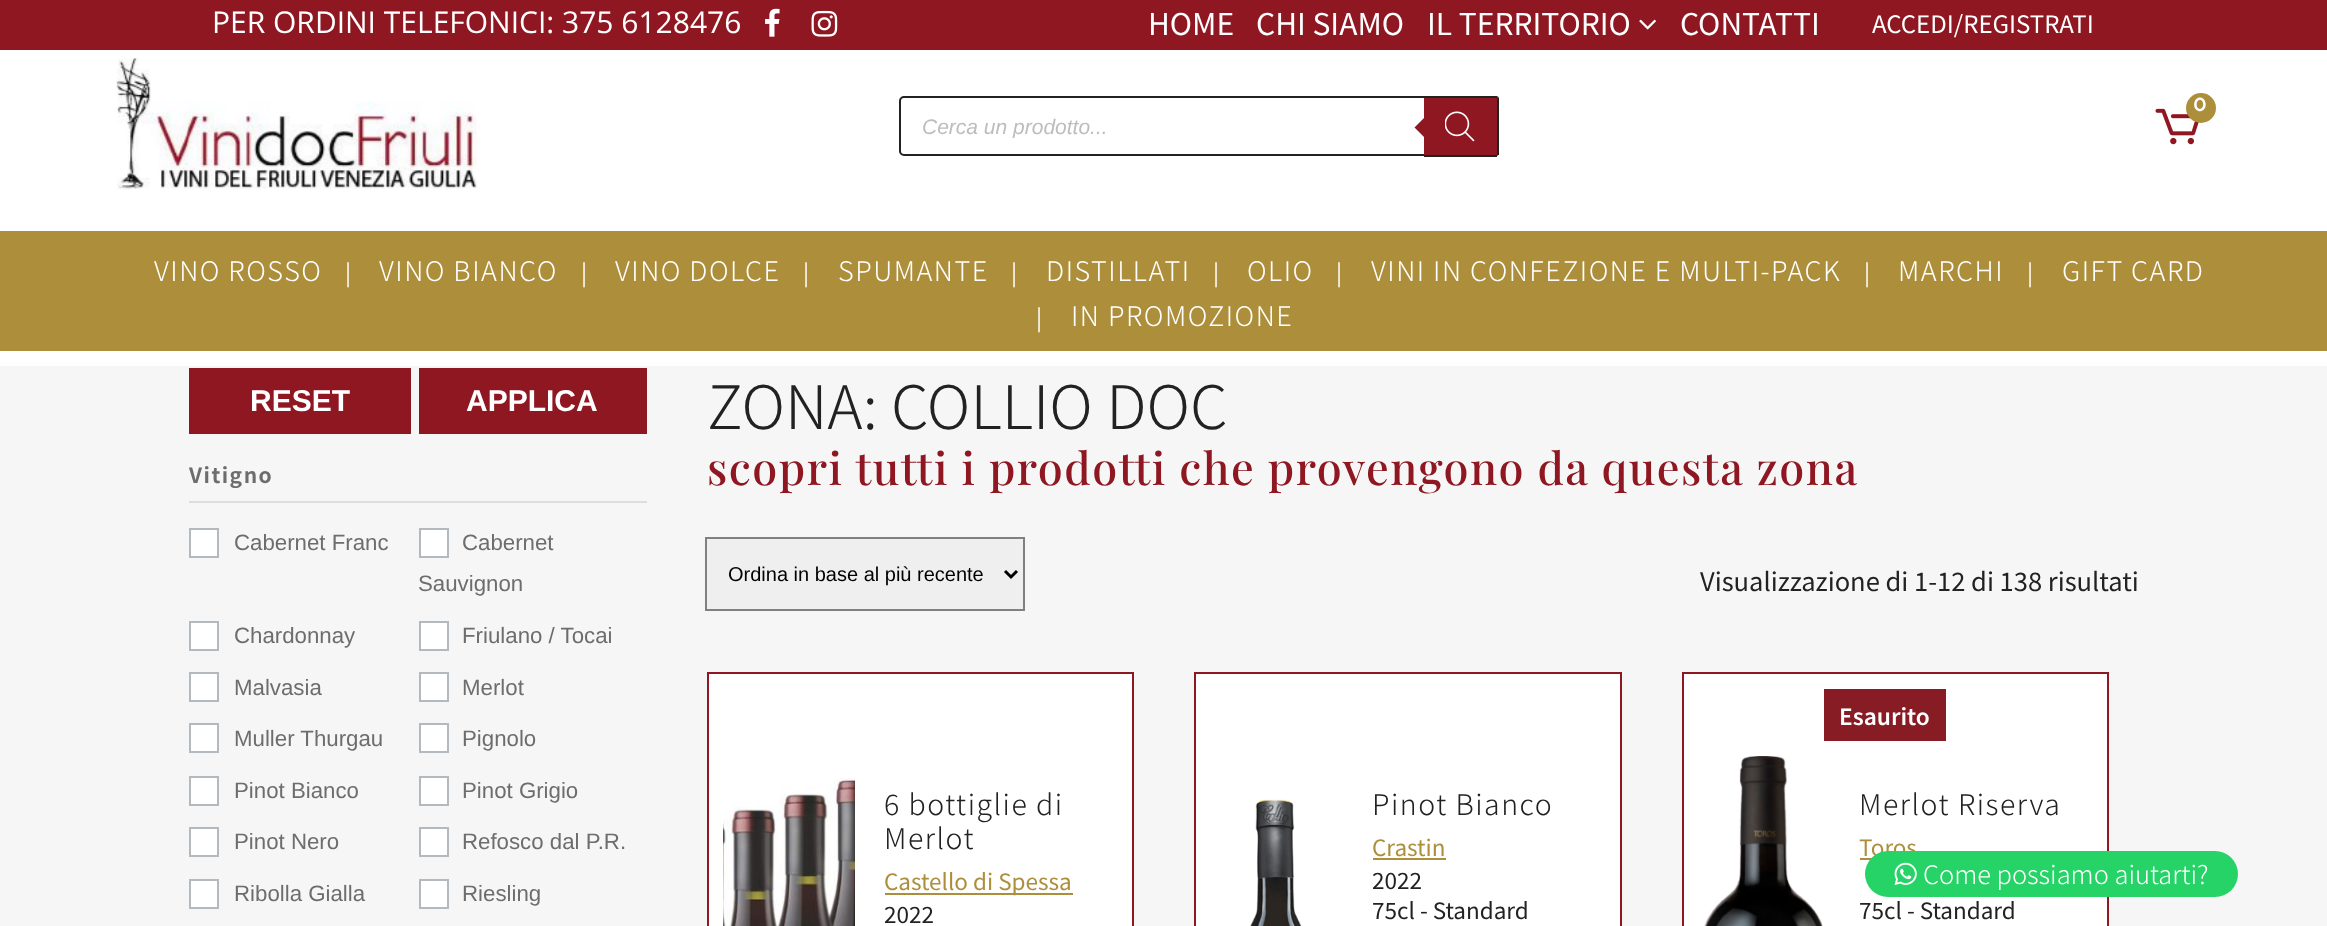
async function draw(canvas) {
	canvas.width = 2327;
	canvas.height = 926;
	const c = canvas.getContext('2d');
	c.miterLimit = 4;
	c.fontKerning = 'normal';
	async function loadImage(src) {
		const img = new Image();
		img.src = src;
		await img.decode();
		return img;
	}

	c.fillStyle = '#f6f6f6';
	c.fillRect(0, 0, 2327, 926);
	c.fillStyle = '#8f1722';
	c.fillRect(0, 0, 2327, 50);
	c.font = '30px Open Sans';
	c.fillStyle = '#fff';
	c.fillText('PER ORDINI TELEFONICI: 375 6128476', 212, 33);
	c.drawImage(await loadImage('img1.png'), 765, 8, 15, 29);
	c.drawImage(await loadImage('img2.png'), 811, 10, 27, 27);
	c.font = '30px Noto Sans JP';
	for (const [text, x, y] of [
		['HOME', 1148, 35],
		['CHI SIAMO', 1256, 35],
		['IL TERRITORIO', 1427, 35],
	]) {
		c.fillText(text, x, y);
	}
	c.drawImage(await loadImage('img3.png'), 1639, 19, 17, 11);
	c.fillText('CONTATTI', 1680, 35);
	c.font = '24px Noto Sans JP';
	c.fillText('ACCEDI/REGISTRATI', 1872, 33);
	c.fillRect(0, 50, 2327, 181);
	c.drawImage(await loadImage('img4.png'), 116, 58, 361, 132);
	c.drawImage(await loadImage('img5.png'), 2155, 108, 44, 37);
	c.fillStyle = '#ad8e3b';
	c.beginPath();
	c.arc(2201, 108, 15, 0, 2 * Math.PI);
	c.fill();
	c.font = '600 22.5px Raleway';
	c.fillStyle = '#fff';
	c.fillText('0', 2193, 111);
	c.beginPath();
	c.roundRect(900, 97, 598, 58, 4);
	c.strokeStyle = '#222';
	c.lineWidth = 2;
	c.stroke();
	c.save();
	c.beginPath();
	c.rect(923, 114, 552, 24);
	c.clip();
	c.font = 'italic 21px Liberation Sans';
	c.fillStyle = '#bdbdbd';
	c.fillText('Cerca un prodotto...', 922, 134);
	c.restore();
	c.fillStyle = '#8f1722';
	c.beginPath();
	c.roundRect(1424, 96, 75, 60, [0, 3, 3, 0]);
	c.fill();
	for (const [x, y, w, h, color] of [
		[1424, 96, 73, 2, '#222'],
		[1497, 98, 2, 57, '#222'],
		[1424, 155, 73, 2, '#222'],
	]) {
		c.fillStyle = color;
		c.fillRect(x, y, w, h);
	}
	c.fillStyle = '#8f1722';
	c.beginPath();
	c.moveTo(1426.5, 115.5);
	c.lineTo(1426.5, 139.5);
	c.lineTo(1414.5, 127.5);
	c.closePath();
	c.fill();
	c.drawImage(await loadImage('img6.png'), 1445, 111, 30, 31);
	c.fillStyle = '#ad8e3b';
	c.fillRect(0, 231, 2327, 120);
	c.fillStyle = '#fff';
	c.fillRect(0, 351, 2327, 15);
	c.letterSpacing = '1.5px';
	c.font = '300 27px Noto Sans JP';
	c.fillText('VINO ROSSO', 154, 281);
	c.letterSpacing = '0px';
	c.font = '22.5px Noto Sans JP';
	c.fillText('|', 345, 281);
	c.letterSpacing = '1.5px';
	c.font = '300 27px Noto Sans JP';
	c.fillText('VINO BIANCO', 379, 281);
	c.letterSpacing = '0px';
	c.font = '22.5px Noto Sans JP';
	c.fillText('|', 581, 281);
	c.letterSpacing = '1.5px';
	c.font = '300 27px Noto Sans JP';
	c.fillText('VINO DOLCE', 615, 281);
	c.letterSpacing = '0px';
	c.font = '22.5px Noto Sans JP';
	c.fillText('|', 803, 281);
	c.letterSpacing = '1.5px';
	c.font = '300 27px Noto Sans JP';
	c.fillText('SPUMANTE', 838, 281);
	c.letterSpacing = '0px';
	c.font = '22.5px Noto Sans JP';
	c.fillText('|', 1011, 281);
	c.letterSpacing = '1.5px';
	c.font = '300 27px Noto Sans JP';
	c.fillText('DISTILLATI', 1046, 281);
	c.letterSpacing = '0px';
	c.font = '22.5px Noto Sans JP';
	c.fillText('|', 1213, 281);
	c.letterSpacing = '1.5px';
	c.font = '300 27px Noto Sans JP';
	c.fillText('OLIO', 1247, 281);
	c.letterSpacing = '0px';
	c.font = '22.5px Noto Sans JP';
	c.fillText('|', 1336, 281);
	c.letterSpacing = '1.5px';
	c.font = '300 27px Noto Sans JP';
	c.fillText('VINI IN CONFEZIONE E MULTI-PACK', 1371, 281);
	c.letterSpacing = '0px';
	c.font = '22.5px Noto Sans JP';
	c.fillText('|', 1864, 281);
	c.letterSpacing = '1.5px';
	c.font = '300 27px Noto Sans JP';
	c.fillText('MARCHI', 1898, 281);
	c.letterSpacing = '0px';
	c.font = '22.5px Noto Sans JP';
	c.fillText('|', 2027, 281);
	c.letterSpacing = '1.5px';
	c.font = '300 27px Noto Sans JP';
	c.fillText('GIFT CARD', 2062, 281);
	c.letterSpacing = '0px';
	c.font = '22.5px Noto Sans JP';
	c.fillText('|', 1036, 326);
	c.letterSpacing = '1.5px';
	c.font = '300 27px Noto Sans JP';
	c.fillText('IN PROMOZIONE', 1071, 326);
	c.fillStyle = '#8f1722';
	c.fillRect(189, 368, 222, 66);
	c.letterSpacing = '0px';
	c.font = 'bold 30px Liberation Sans';
	c.fillStyle = '#fff';
	c.fillText('RESET', 250, 411);
	c.fillStyle = '#8f1722';
	c.fillRect(419, 368, 228, 66);
	c.fillStyle = '#fff';
	c.fillText('APPLICA', 466, 411);
	c.fillStyle = '#ddd';
	c.fillRect(189, 501, 458, 2);
	c.letterSpacing = '1.5px';
	c.font = 'bold 21px Noto Sans JP';
	c.fillStyle = '#6d6d6d';
	c.fillText('Vitigno', 189, 483);
	c.fillStyle = '#fff';
	c.beginPath();
	c.rect(190, 529, 28, 28);
	c.fill();
	c.strokeStyle = '#b4b9be';
	c.stroke();
	c.letterSpacing = '0px';
	c.font = '22.25px Liberation Sans';
	c.fillStyle = '#6d6d6d';
	c.fillText('Cabernet Franc', 234, 550);
	c.fillStyle = '#fff';
	c.beginPath();
	c.rect(420, 529, 28, 28);
	c.fill();
	c.stroke();
	c.fillStyle = '#6d6d6d';
	c.fillText('Cabernet', 462, 550);
	c.fillText('Sauvignon', 418, 591);
	c.fillStyle = '#fff';
	c.beginPath();
	c.rect(190, 622, 28, 28);
	c.fill();
	c.stroke();
	c.fillStyle = '#6d6d6d';
	c.fillText('Chardonnay', 234, 643);
	c.fillStyle = '#fff';
	c.beginPath();
	c.rect(420, 622, 28, 28);
	c.fill();
	c.stroke();
	c.fillStyle = '#6d6d6d';
	c.fillText('Friulano / Tocai', 462, 643);
	c.fillStyle = '#fff';
	c.beginPath();
	c.rect(190, 673, 28, 28);
	c.fill();
	c.stroke();
	c.fillStyle = '#6d6d6d';
	c.fillText('Malvasia', 234, 695);
	c.fillStyle = '#fff';
	c.beginPath();
	c.rect(420, 673, 28, 28);
	c.fill();
	c.stroke();
	c.fillStyle = '#6d6d6d';
	c.fillText('Merlot', 462, 695);
	c.fillStyle = '#fff';
	c.beginPath();
	c.rect(190, 724, 28, 28);
	c.fill();
	c.stroke();
	c.fillStyle = '#6d6d6d';
	c.fillText('Muller Thurgau', 234, 746);
	c.fillStyle = '#fff';
	c.beginPath();
	c.rect(420, 724, 28, 28);
	c.fill();
	c.stroke();
	c.fillStyle = '#6d6d6d';
	c.fillText('Pignolo', 462, 746);
	c.fillStyle = '#fff';
	c.beginPath();
	c.rect(190, 777, 28, 28);
	c.fill();
	c.stroke();
	c.fillStyle = '#6d6d6d';
	c.fillText('Pinot Bianco', 234, 798);
	c.fillStyle = '#fff';
	c.beginPath();
	c.rect(420, 777, 28, 28);
	c.fill();
	c.stroke();
	c.fillStyle = '#6d6d6d';
	c.fillText('Pinot Grigio', 462, 798);
	c.fillStyle = '#fff';
	c.beginPath();
	c.rect(190, 828, 28, 28);
	c.fill();
	c.stroke();
	c.fillStyle = '#6d6d6d';
	c.fillText('Pinot Nero', 234, 849);
	c.fillStyle = '#fff';
	c.beginPath();
	c.rect(420, 828, 28, 28);
	c.fill();
	c.stroke();
	c.fillStyle = '#6d6d6d';
	c.fillText('Refosco dal P.R.', 462, 849);
	c.fillStyle = '#fff';
	c.beginPath();
	c.rect(190, 880, 28, 28);
	c.fill();
	c.stroke();
	c.fillStyle = '#6d6d6d';
	c.fillText('Ribolla Gialla', 234, 901);
	c.fillStyle = '#fff';
	c.beginPath();
	c.rect(420, 880, 28, 28);
	c.fill();
	c.stroke();
	c.fillStyle = '#6d6d6d';
	c.fillText('Riesling', 462, 901);
	c.font = '300 60px Noto Sans JP';
	c.fillStyle = '#222';
	c.fillText('ZONA: COLLIO DOC', 707, 429);
	c.letterSpacing = '1.5px';
	c.font = '500 45px Playfair Display';
	c.fillStyle = '#8f1722';
	c.fillText('scopri tutti i prodotti che provengono da questa zona', 707, 485);
	c.fillStyle = '#efefef';
	c.beginPath();
	c.rect(706, 538, 318, 72);
	c.fill();
	c.strokeStyle = '#808080';
	c.stroke();
	c.beginPath();
	c.moveTo(1005, 571);
	c.lineTo(1011, 577);
	c.lineTo(1017, 571);
	c.strokeStyle = '#000';
	c.lineWidth = 3;
	c.stroke();
	c.letterSpacing = '0px';
	c.font = '20px Liberation Sans';
	c.fillStyle = '#000';
	c.fillText('Ordina in base al più recente', 728, 581);
	c.font = '25.5px Noto Sans JP';
	c.fillStyle = '#222';
	c.fillText('Visualizzazione di 1-12 di 138 risultati', 1700, 591);
	c.fillStyle = '#fff';
	c.beginPath();
	c.rect(708, 673, 425, 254);
	c.fill();
	c.strokeStyle = '#8f1722';
	c.lineWidth = 2;
	c.stroke();
	c.drawImage(await loadImage('img7.png'), 723, 778, 132, 148);
	c.letterSpacing = '1.5px';
	c.font = '300 28.5px Noto Sans JP';
	c.fillStyle = '#222';
	c.fillText('6 bottiglie di', 884, 815);
	c.fillText('Merlot', 884, 849);
	c.fillStyle = '#ad8e3b';
	c.fillRect(885, 893, 188, 2);
	c.letterSpacing = '0px';
	c.font = '22.5px Noto Sans JP';
	c.fillText('Castello di Spessa', 884, 890);
	c.fillStyle = '#222';
	c.fillText('2022', 884, 923);
	c.fillStyle = '#fff';
	c.beginPath();
	c.rect(1195, 673, 426, 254);
	c.fill();
	c.stroke();
	c.drawImage(await loadImage('img8.png'), 1250, 799, 52, 127);
	c.letterSpacing = '1.5px';
	c.font = '300 28.5px Noto Sans JP';
	c.fillStyle = '#222';
	c.fillText('Pinot Bianco', 1372, 815);
	c.letterSpacing = '0px';
	c.font = '22.5px Noto Sans JP';
	c.fillStyle = '#ad8e3b';
	c.fillText('Crastin', 1372, 856);
	c.fillRect(1373, 858, 73, 2);
	c.fillStyle = '#222';
	c.fillText('2022', 1372, 889);
	c.fillText('75cl - Standard', 1372, 919);
	c.fillStyle = '#fff';
	c.beginPath();
	c.rect(1683, 673, 425, 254);
	c.fill();
	c.stroke();
	c.fillStyle = '#881c24';
	c.fillRect(1824, 689, 122, 52);
	c.font = '600 22.5px Noto Sans JP';
	c.fillStyle = '#fff';
	c.fillText('Esaurito', 1839, 725);
	c.drawImage(await loadImage('img9.png'), 1704, 756, 119, 170);
	c.letterSpacing = '1.5px';
	c.font = '300 28.5px Noto Sans JP';
	c.fillStyle = '#222';
	c.fillText('Merlot Riserva', 1859, 815);
	c.letterSpacing = '0px';
	c.font = '22.5px Noto Sans JP';
	c.fillStyle = '#ad8e3b';
	c.fillText('Toros', 1859, 856);
	c.fillRect(1860, 858, 12, 2);
	c.fillStyle = '#222';
	c.fillText('75cl - Standard', 1859, 919);
	c.fillStyle = '#25d366';
	c.beginPath();
	c.roundRect(1865, 851, 373, 46, 23);
	c.fill();
	c.drawImage(await loadImage('img10.png'), 1894, 862, 23, 23);
	c.font = '300 25.5px Noto Sans JP';
	c.fillStyle = '#fff';
	c.fillText('Come possiamo aiutarti?', 1923, 884);
}

draw(document.querySelector('canvas'));
